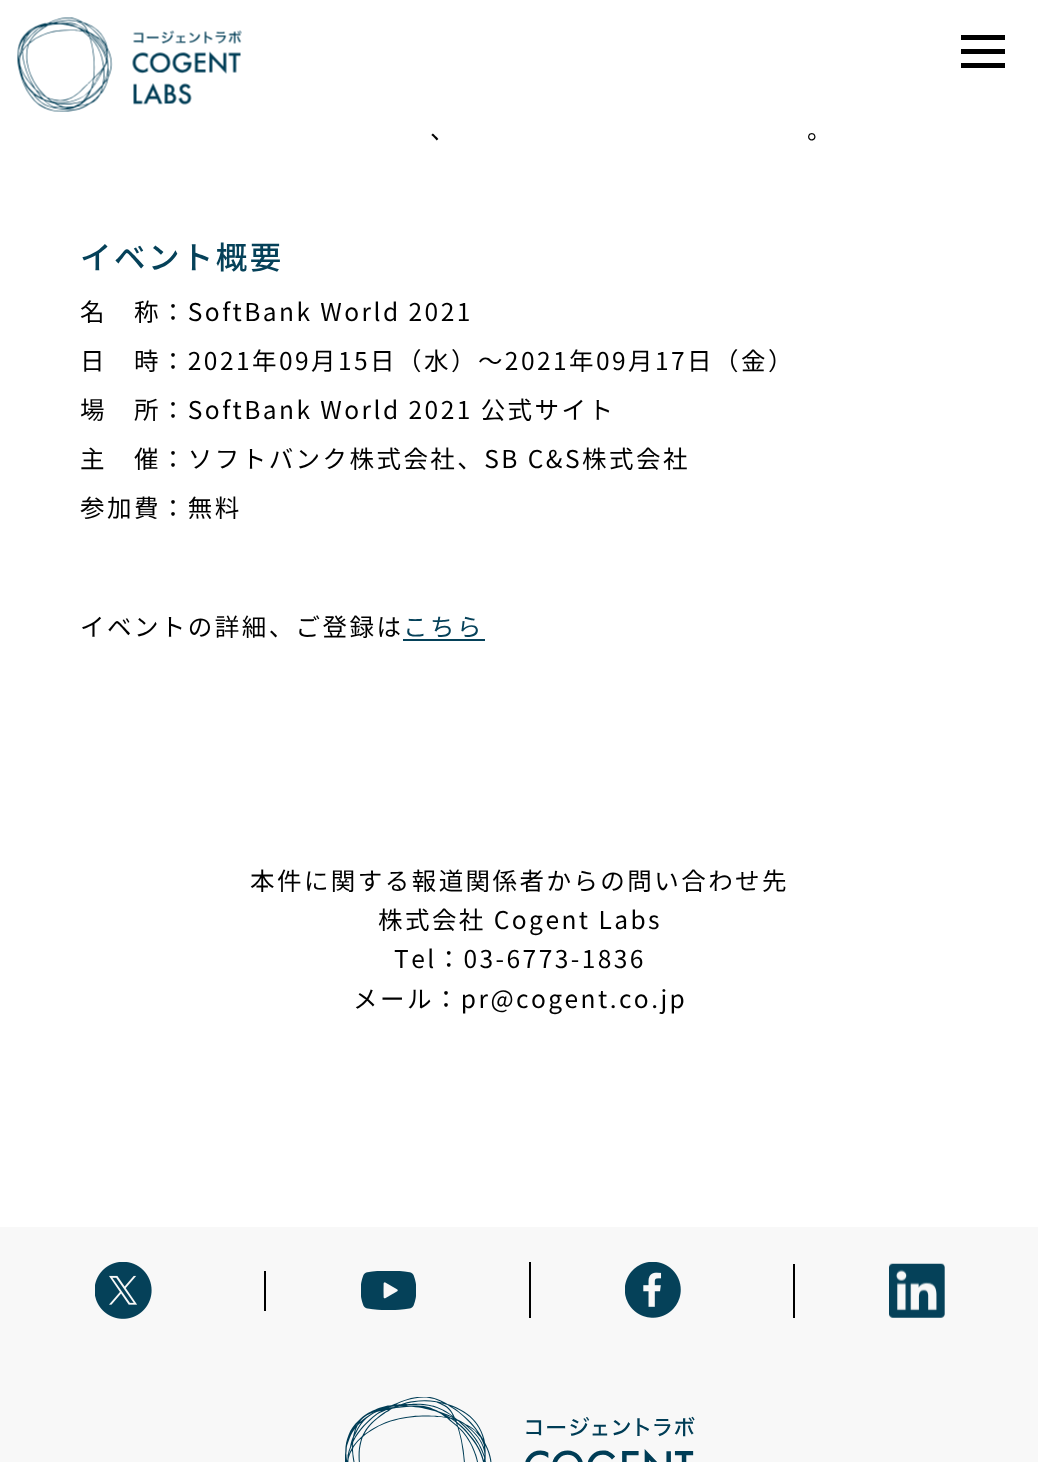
async function draw(canvas) {
	canvas.width = 1038;
	canvas.height = 1462;
	const c = canvas.getContext('2d');
	c.miterLimit = 4;
	c.fontKerning = 'none';
	async function loadImage(src) {
		const img = new Image();
		img.src = src;
		await img.decode();
		return img;
	}

	c.fillStyle = '#fff';
	c.fillRect(0, 0, 1038, 1462);
	c.drawImage(await loadImage('img1.png'), 17, 17, 225, 95);
	for (const [x, y, w, h, color] of [
		[961, 35, 44, 5, '#000'],
		[961, 49, 44, 5, '#000'],
		[961, 63, 44, 5, '#000'],
	]) {
		c.fillStyle = color;
		c.fillRect(x, y, w, h);
	}
	c.letterSpacing = '2.45px';
	c.font = '24.5px Noto Sans JP';
	c.fillText('、', 430, 139);
	c.fillText('。', 807, 139);
	c.font = '500 31.5px Noto Sans JP';
	c.fillStyle = '#054159';
	c.fillText('イベント概要', 80, 269);
	c.font = '24.5px Noto Sans JP';
	c.fillStyle = '#000';
	for (const [text, x, y] of [
		['名　称：SoftBank World 2021', 80, 321],
		['日　時：2021年09月15日（水）～2021年09月17日（金）', 80, 370],
		['場　所：SoftBank World 2021 公式サイト', 80, 419],
		['主　催：ソフトバンク株式会社、SB C&S株式会社', 80, 468],
		['参加費：無料', 80, 517],
		['イベントの詳細、ご登録は', 80, 636],
	]) {
		c.fillText(text, x, y);
	}
	c.fillStyle = '#054159';
	c.fillText('こちら', 403, 636);
	c.fillRect(403, 639, 82, 2);
	c.fillStyle = '#000';
	for (const [text, x, y] of [
		['本件に関する報道関係者からの問い合わせ先', 250, 890],
		['株式会社 Cogent Labs', 378, 929],
		['Tel：03-6773-1836', 394, 968],
		['メール：pr@cogent.co.jp', 353, 1008],
	]) {
		c.fillText(text, x, y);
	}
	c.fillStyle = '#f8f8f8';
	c.fillRect(0, 1227, 1038, 235);
	c.drawImage(await loadImage('img2.png'), 95, 1262, 57, 57);
	c.fillStyle = '#000';
	c.fillRect(264, 1271, 2, 40);
	c.drawImage(await loadImage('img3.png'), 361, 1271, 55, 39);
	c.fillRect(529, 1262, 2, 56);
	c.drawImage(await loadImage('img4.png'), 625, 1262, 56, 56);
	c.fillRect(793, 1264, 2, 54);
	c.drawImage(await loadImage('img5.png'), 889, 1263, 56, 55);
	c.drawImage(await loadImage('img6.png'), 345, 1397, 350, 65);
}

draw(document.querySelector('canvas'));
